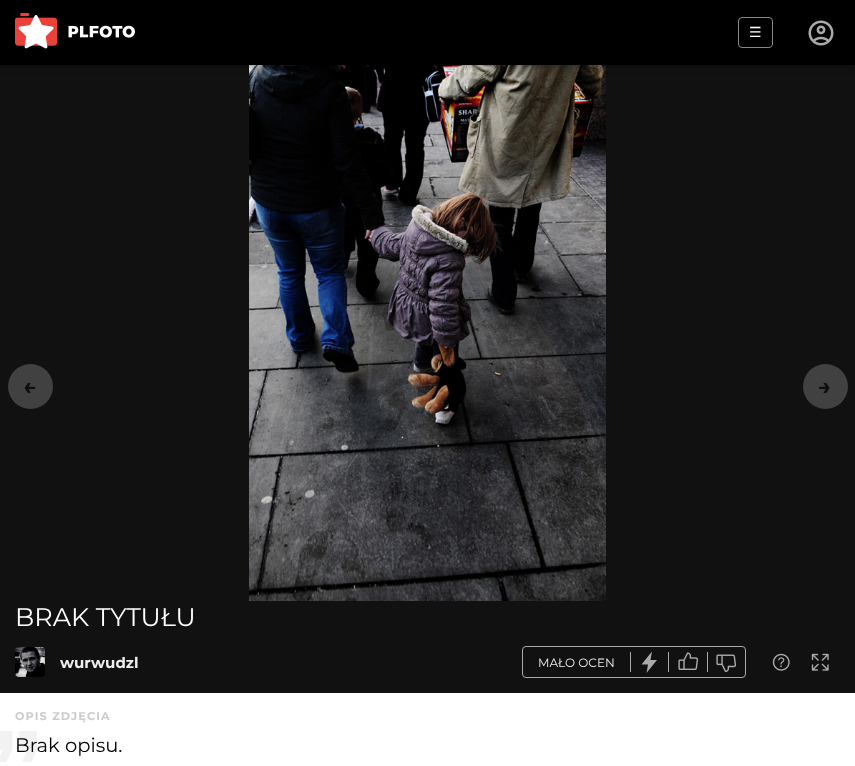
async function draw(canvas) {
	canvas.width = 855;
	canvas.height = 766;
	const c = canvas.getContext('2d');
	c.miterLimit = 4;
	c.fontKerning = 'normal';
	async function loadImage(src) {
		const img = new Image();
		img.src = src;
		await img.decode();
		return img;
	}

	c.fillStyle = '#fff';
	c.fillRect(0, 0, 855, 766);
	c.fillStyle = '#111';
	c.fillRect(0, 65, 855, 628);
	c.drawImage(await loadImage('img3.png'), 249, 65, 357, 536);
	c.fillStyle = '#0000001c';
	c.filter = 'blur(1px)';
	c.beginPath();
	c.rect(0, 1, 855, 65);
	c.fill();
	c.filter = 'none';
	c.fillStyle = '#00000021';
	c.filter = 'blur(3.5px)';
	c.beginPath();
	c.rect(0, 3, 855, 65);
	c.fill();
	c.filter = 'none';
	c.fillStyle = '#000';
	c.fillRect(0, 0, 855, 65);
	c.drawImage(await loadImage('img1.png'), 15, 13, 120, 36);
	c.beginPath();
	c.roundRect(738.5, 17.5, 34, 30, 3.5);
	c.strokeStyle = '#888';
	c.stroke();
	c.font = '14px DejaVu Sans';
	c.fillStyle = '#fff';
	c.fillText('☰', 749, 37);
	c.drawImage(await loadImage('img2.png'), 808, 20, 26, 26);
	c.fillStyle = '#414141';
	c.beginPath();
	c.arc(30.5, 386.5, 22.5, 0, 2 * Math.PI);
	c.fill();
	c.font = 'bold 22px Montserrat';
	c.fillStyle = '#0e0e0e';
	c.fillText('←', 23, 394);
	c.fillStyle = '#414141';
	c.beginPath();
	c.arc(825.5, 386.5, 22.5, 0, 2 * Math.PI);
	c.fill();
	c.fillStyle = '#0e0e0e';
	c.fillText('→', 818, 394);
	c.font = '25.5px Montserrat';
	c.fillStyle = '#fff';
	c.fillText('BRAK TYTUŁU', 15, 626);
	c.drawImage(await loadImage('img4.png'), 15, 647, 30, 30);
	c.font = 'bold 15px Montserrat';
	c.fillStyle = '#eee';
	c.fillText('wurwudzl', 60, 668);
	c.beginPath();
	c.roundRect(522.5, 646.5, 223, 31, 3.5);
	c.strokeStyle = '#aaa';
	c.stroke();
	c.font = '12px Montserrat';
	c.fillText('MAŁO OCEN', 538, 667);
	c.fillStyle = '#aaa';
	c.fillRect(630, 652, 1, 20);
	c.beginPath();
	c.moveTo(657, 660);
	c.lineTo(650.5, 660);
	c.lineTo(652, 651.5);
	c.lineTo(641.5, 664.5);
	c.lineTo(648, 664.5);
	c.lineTo(646.5, 673);
	c.closePath();
	c.fill();
	c.fillRect(668, 652, 1, 20);
	c.drawImage(await loadImage('img5.png'), 678, 652, 21, 18);
	c.fillRect(707, 652, 1, 20);
	c.drawImage(await loadImage('img6.png'), 716, 654, 21, 19);
	c.drawImage(await loadImage('img7.png'), 772, 653, 18, 18);
	c.drawImage(await loadImage('img8.png'), 811, 653, 18, 18);
	c.letterSpacing = '1.1px';
	c.font = 'bold 11.25px Montserrat';
	c.fillStyle = '#ccc';
	c.fillText('OPIS ZDJĘCIA', 15, 720);
	c.letterSpacing = '0px';
	c.font = '19.5px Montserrat';
	c.fillStyle = '#000';
	c.fillText('Brak opisu.', 15, 752);
	c.drawImage(await loadImage('img9.png'), 0, 731, 37, 31);
}

draw(document.querySelector('canvas'));
